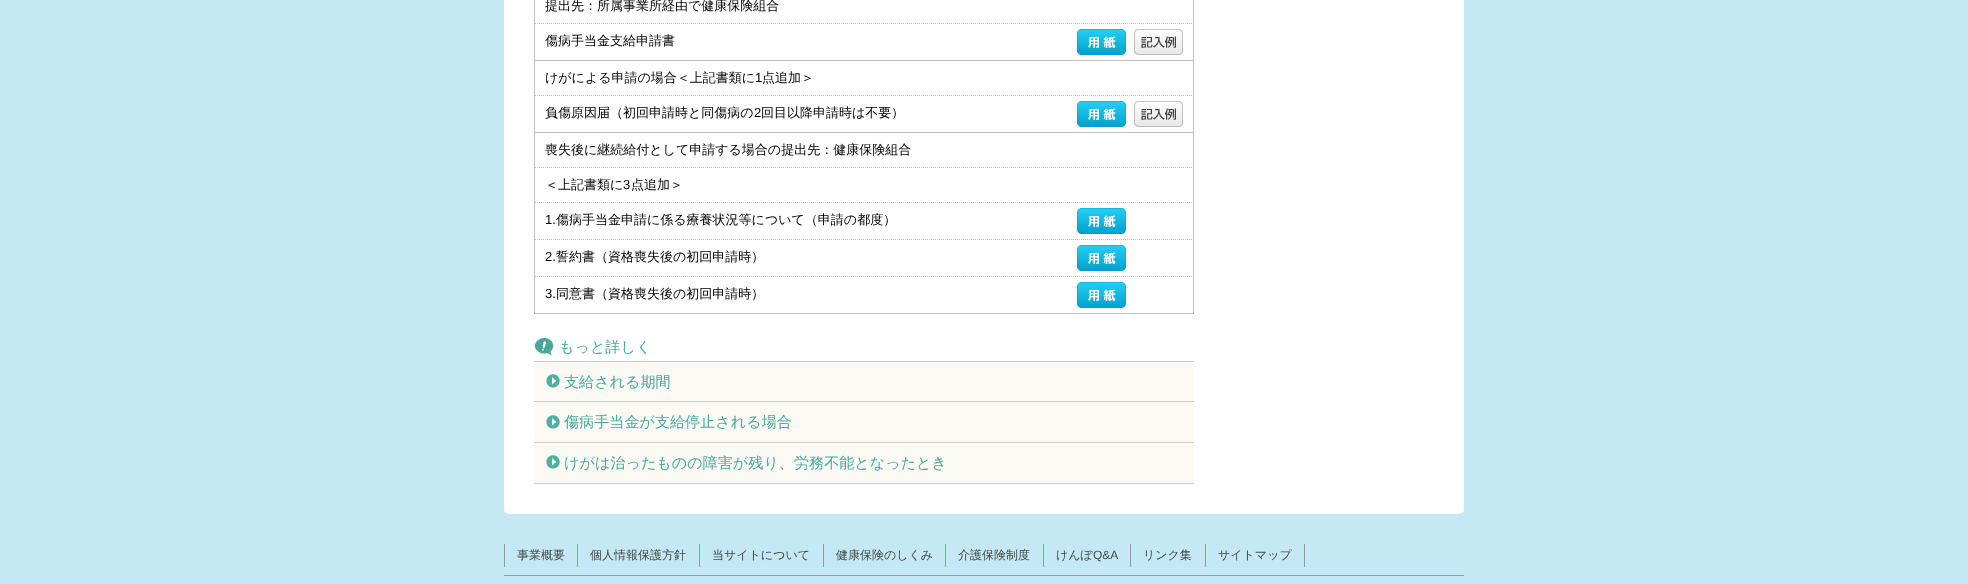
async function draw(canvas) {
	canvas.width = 1968;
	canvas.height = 584;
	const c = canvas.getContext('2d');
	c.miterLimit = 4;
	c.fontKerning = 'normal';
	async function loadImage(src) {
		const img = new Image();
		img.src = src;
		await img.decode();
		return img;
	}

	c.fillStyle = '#c4e9f5';
	c.fillRect(0, 0, 1968, 584);
	c.fillStyle = '#fff';
	c.beginPath();
	c.roundRect(504, -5, 960, 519, 5);
	c.fill();
	for (const [x, y, w, h, color] of [
		[1193, 0, 1, 314, '#c1c1c1'],
		[534, 313, 660, 1, '#c1c1c1'],
		[534, 0, 1, 314, '#c1c1c1'],
	]) {
		c.fillStyle = color;
		c.fillRect(x, y, w, h);
	}
	c.font = '500 13px WenQuanYi Zen Hei';
	c.fillStyle = '#000';
	c.fillText('提出先：所属事業所経由で健康保険組合', 545, 10);
	c.beginPath();
	c.moveTo(535, 23.5);
	c.lineTo(1193, 23.5);
	c.strokeStyle = '#c1c1c1';
	c.setLineDash([1, 1]);
	c.stroke();
	c.fillText('傷病手当金支給申請書', 545, 45);
	c.drawImage(await loadImage('img1.png'), 1077, 29, 49, 26);
	c.drawImage(await loadImage('img2.png'), 1134, 29, 49, 26);
	c.fillStyle = '#c1c1c1';
	c.fillRect(535, 60, 658, 1);
	c.fillStyle = '#000';
	c.fillText('けがによる申請の場合＜上記書類に', 545, 82);
	c.font = '13px Liberation Sans';
	c.fillText('1', 755, 82);
	c.font = '500 13px WenQuanYi Zen Hei';
	c.fillText('点追加＞', 762, 82);
	c.beginPath();
	c.moveTo(535, 95.5);
	c.lineTo(1193, 95.5);
	c.stroke();
	c.fillText('負傷原因届（初回申請時と同傷病の', 545, 117);
	c.font = '13px Liberation Sans';
	c.fillText('2', 754, 117);
	c.font = '500 13px WenQuanYi Zen Hei';
	c.fillText('回目以降申請時は不要）', 761, 117);
	c.drawImage(await loadImage('img1.png'), 1077, 101, 49, 26);
	c.drawImage(await loadImage('img2.png'), 1134, 101, 49, 26);
	c.fillStyle = '#c1c1c1';
	c.fillRect(535, 132, 658, 1);
	c.fillStyle = '#000';
	c.fillText('喪失後に継続給付として申請する場合の提出先：健康保険組合', 545, 154);
	c.beginPath();
	c.moveTo(535, 167.5);
	c.lineTo(1193, 167.5);
	c.stroke();
	c.fillText('＜上記書類に', 545, 189);
	c.font = '13px Liberation Sans';
	c.fillText('3', 623, 189);
	c.font = '500 13px WenQuanYi Zen Hei';
	c.fillText('点追加＞', 631, 189);
	c.beginPath();
	c.moveTo(535, 202.5);
	c.lineTo(1193, 202.5);
	c.stroke();
	c.font = '13px Liberation Sans';
	c.fillText('1.', 545, 224);
	c.font = '500 13px WenQuanYi Zen Hei';
	c.fillText('傷病手当金申請に係る療養状況等について（申請の都度）', 556, 224);
	c.drawImage(await loadImage('img1.png'), 1077, 208, 49, 26);
	c.beginPath();
	c.moveTo(535, 239.5);
	c.lineTo(1193, 239.5);
	c.stroke();
	c.font = '13px Liberation Sans';
	c.fillText('2.', 545, 261);
	c.font = '500 13px WenQuanYi Zen Hei';
	c.fillText('誓約書（資格喪失後の初回申請時）', 556, 261);
	c.drawImage(await loadImage('img1.png'), 1077, 245, 49, 26);
	c.beginPath();
	c.moveTo(535, 276.5);
	c.lineTo(1193, 276.5);
	c.stroke();
	c.font = '13px Liberation Sans';
	c.fillText('3.', 545, 298);
	c.font = '500 13px WenQuanYi Zen Hei';
	c.fillText('同意書（資格喪失後の初回申請時）', 556, 298);
	c.drawImage(await loadImage('img1.png'), 1077, 282, 49, 26);
	c.fillStyle = '#ccc';
	c.fillRect(534, 483, 660, 1);
	c.drawImage(await loadImage('img3.png'), 535, 338, 19, 18);
	c.font = '500 15.1px WenQuanYi Zen Hei';
	c.fillStyle = '#47a99b';
	c.fillText('もっと詳しく', 559, 352);
	c.fillStyle = '#faf9f4';
	c.fillRect(534, 362, 660, 121);
	c.fillStyle = '#ccc';
	c.fillRect(534, 361, 660, 1);
	c.drawImage(await loadImage('img4.png'), 546, 374, 14, 14);
	c.fillStyle = '#47a99b';
	c.fillText('支給される期間', 564, 387);
	c.drawImage(await loadImage('img4.png'), 546, 415, 14, 14);
	c.fillStyle = '#ccc';
	c.fillRect(534, 401, 660, 1);
	c.fillStyle = '#47a99b';
	c.fillText('傷病手当金が支給停止される場合', 564, 427);
	c.drawImage(await loadImage('img4.png'), 546, 455, 14, 14);
	c.fillStyle = '#ccc';
	c.fillRect(534, 442, 660, 1);
	c.fillStyle = '#47a99b';
	c.fillText('けがは治ったものの障害が残り、労務不能となったとき', 564, 468);
	for (const [x, y, w, h, color] of [
		[504, 575, 960, 1, '#999'],
		[577, 544, 1, 23, '#999'],
		[504, 544, 1, 23, '#999'],
	]) {
		c.fillStyle = color;
		c.fillRect(x, y, w, h);
	}
	c.font = '500 12px WenQuanYi Zen Hei';
	c.fillStyle = '#474747';
	c.fillText('事業概要', 517, 559);
	c.fillStyle = '#999';
	c.fillRect(699, 544, 1, 23);
	c.fillStyle = '#474747';
	c.fillText('個人情報保護方針', 590, 559);
	c.fillStyle = '#999';
	c.fillRect(823, 544, 1, 23);
	c.fillStyle = '#474747';
	c.fillText('当サイトについて', 712, 559);
	c.fillStyle = '#999';
	c.fillRect(945, 544, 1, 23);
	c.fillStyle = '#474747';
	c.fillText('健康保険のしくみ', 836, 559);
	c.fillStyle = '#999';
	c.fillRect(1043, 544, 1, 23);
	c.fillStyle = '#474747';
	c.fillText('介護保険制度', 958, 559);
	c.fillStyle = '#999';
	c.fillRect(1130, 544, 1, 23);
	c.fillStyle = '#474747';
	c.fillText('けんぽ', 1056, 559);
	c.font = '12px Liberation Sans';
	c.fillText('Q&A', 1093, 559);
	c.fillStyle = '#999';
	c.fillRect(1205, 544, 1, 23);
	c.font = '500 12px WenQuanYi Zen Hei';
	c.fillStyle = '#474747';
	c.fillText('リンク集', 1143, 559);
	c.fillStyle = '#999';
	c.fillRect(1304, 544, 1, 23);
	c.fillStyle = '#474747';
	c.fillText('サイトマップ', 1218, 559);
}

draw(document.querySelector('canvas'));
